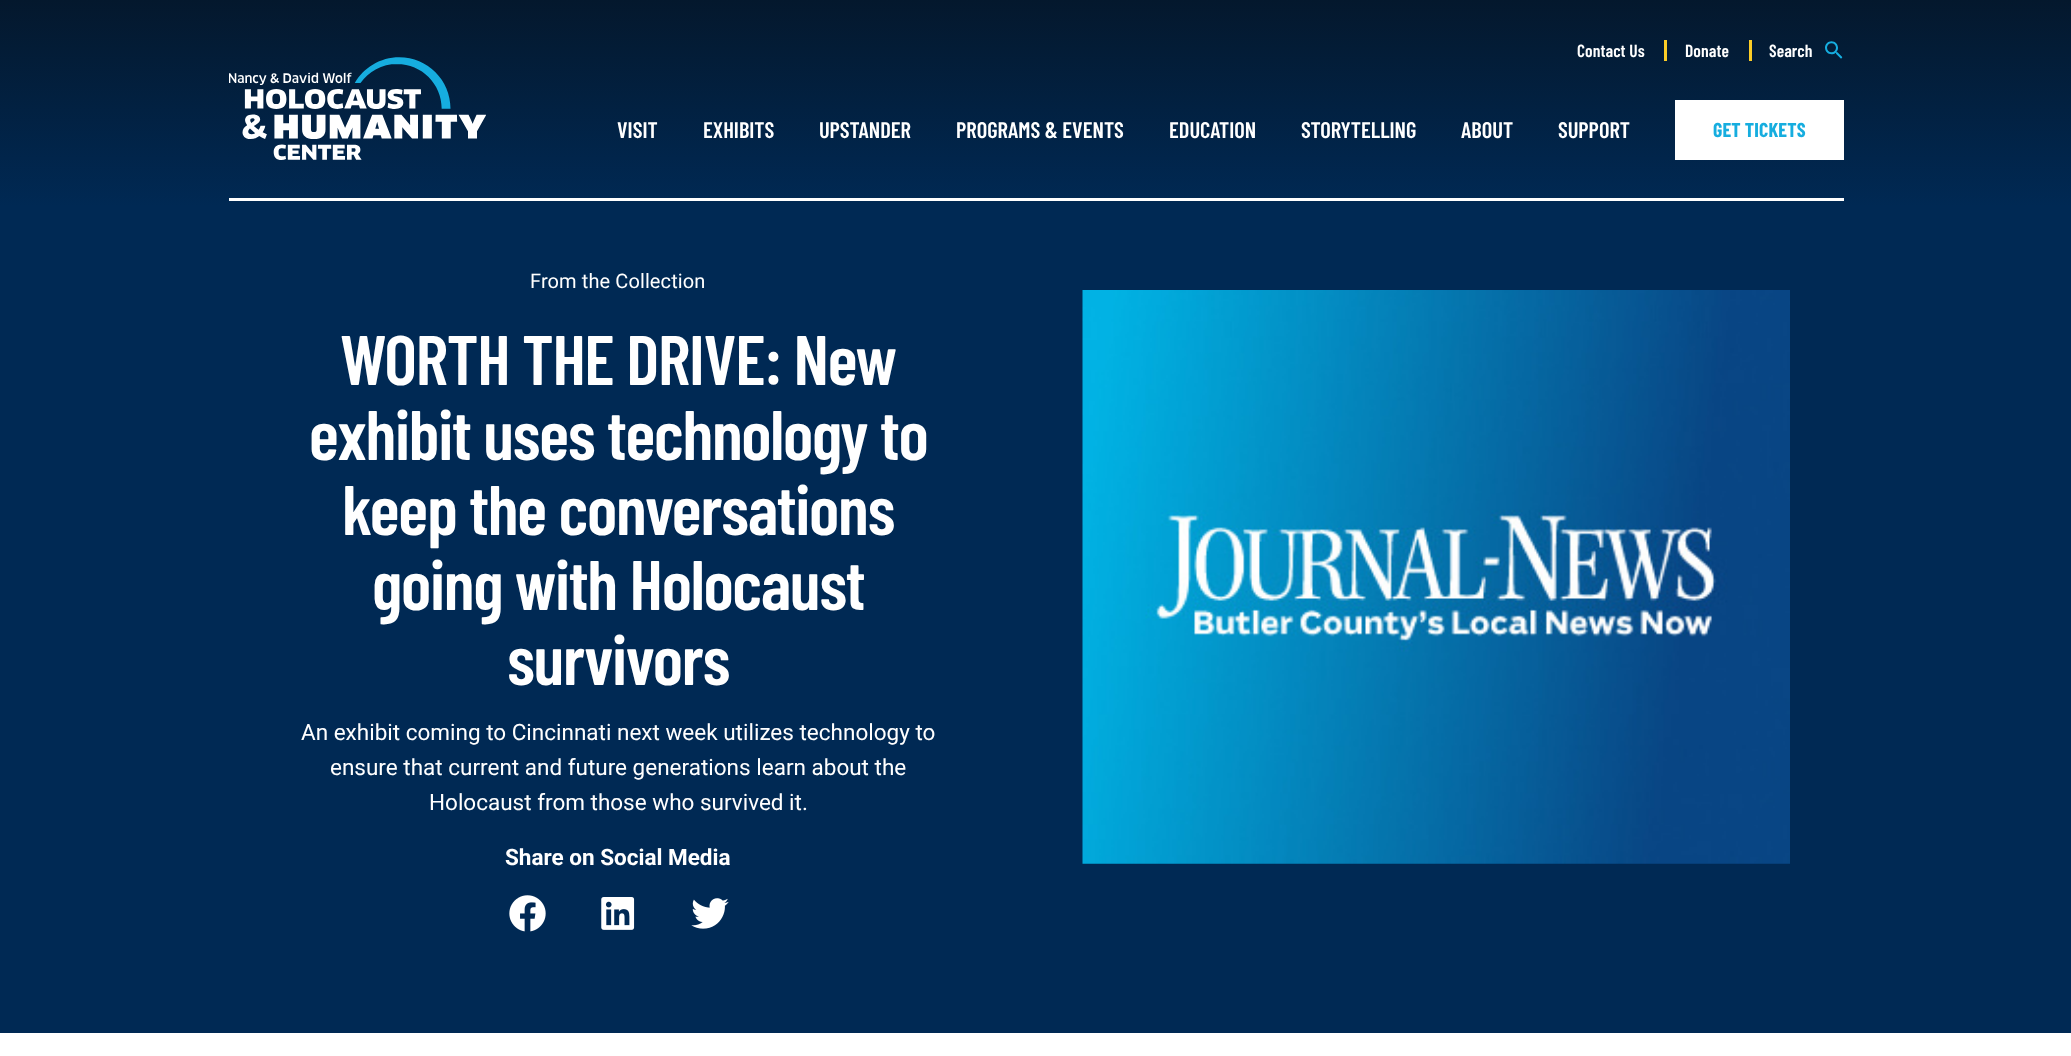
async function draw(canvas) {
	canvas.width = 2071;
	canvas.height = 1056;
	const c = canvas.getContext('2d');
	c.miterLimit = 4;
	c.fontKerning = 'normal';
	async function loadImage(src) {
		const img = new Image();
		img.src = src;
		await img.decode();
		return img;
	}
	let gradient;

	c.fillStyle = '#fff';
	c.fillRect(0, 0, 2071, 1056);
	gradient = c.createLinearGradient(1036, 0, 1036, 206);
	gradient.addColorStop(0, '#04182d');
	gradient.addColorStop(1, '#002954');
	c.fillStyle = gradient;
	c.fillRect(0, 0, 2071, 206);
	c.fillStyle = '#fccd27';
	c.fillRect(1664, 40, 3, 21);
	c.letterSpacing = '0.1px';
	c.font = '600 17.5px Barlow Condensed';
	c.fillStyle = '#fff';
	c.fillText('Contact Us', 1577, 57);
	c.fillStyle = '#fccd27';
	c.fillRect(1749, 40, 3, 21);
	c.fillStyle = '#fff';
	c.fillText('Donate', 1685, 57);
	c.fillText('Search', 1769, 57);
	c.drawImage(await loadImage('img1.png'), 1825, 41, 18, 18);
	c.fillRect(229, 198, 1615, 3);
	c.drawImage(await loadImage('img2.png'), 229, 57, 257, 103);
	c.letterSpacing = '0px';
	c.font = '600 22.5px Barlow Condensed';
	for (const [text, x, y] of [
		['VISIT', 617, 138],
		['EXHIBITS', 703, 138],
		['UPSTANDER', 819, 138],
		['PROGRAMS & EVENTS', 956, 138],
		['EDUCATION', 1169, 138],
		['STORYTELLING', 1301, 138],
		['ABOUT', 1461, 138],
		['SUPPORT', 1558, 138],
	]) {
		c.fillText(text, x, y);
	}
	c.fillRect(1675, 100, 169, 60);
	c.letterSpacing = '0.1px';
	c.font = 'bold 20px Barlow Condensed';
	c.fillStyle = '#16addf';
	c.fillText('GET TICKETS', 1713, 137);
	c.fillStyle = '#002954';
	c.fillRect(0, 206, 2071, 827);
	c.font = '20px Roboto';
	c.fillStyle = '#fff';
	c.fillText('From the Collection', 530, 288);
	c.letterSpacing = '-1.25px';
	c.font = '600 70px Barlow Condensed';
	for (const [text, x, y] of [
		['WORTH THE DRIVE: New', 340, 385],
		['exhibit uses technology to', 309, 460],
		['keep the conversations', 342, 535],
		['going with Holocaust', 372, 610],
		['survivors', 507, 685],
	]) {
		c.fillText(text, x, y);
	}
	c.letterSpacing = '0px';
	c.font = '22.5px Roboto';
	for (const [text, x, y] of [
		['An exhibit coming to Cincinnati next week utilizes technology to', 301, 740],
		['ensure that current and future generations learn about the', 330, 775],
		['Holocaust from those who survived it.', 429, 810],
	]) {
		c.fillText(text, x, y);
	}
	c.font = 'bold 22.5px Roboto';
	c.fillText('Share on Social Media', 505, 865);
	c.drawImage(await loadImage('img3.png'), 509, 895, 37, 37);
	c.drawImage(await loadImage('img4.png'), 601, 897, 34, 33);
	c.drawImage(await loadImage('img5.png'), 691, 898, 38, 31);
	c.drawImage(await loadImage('img6.png'), 1082, 290, 708, 574);
}

draw(document.querySelector('canvas'));
